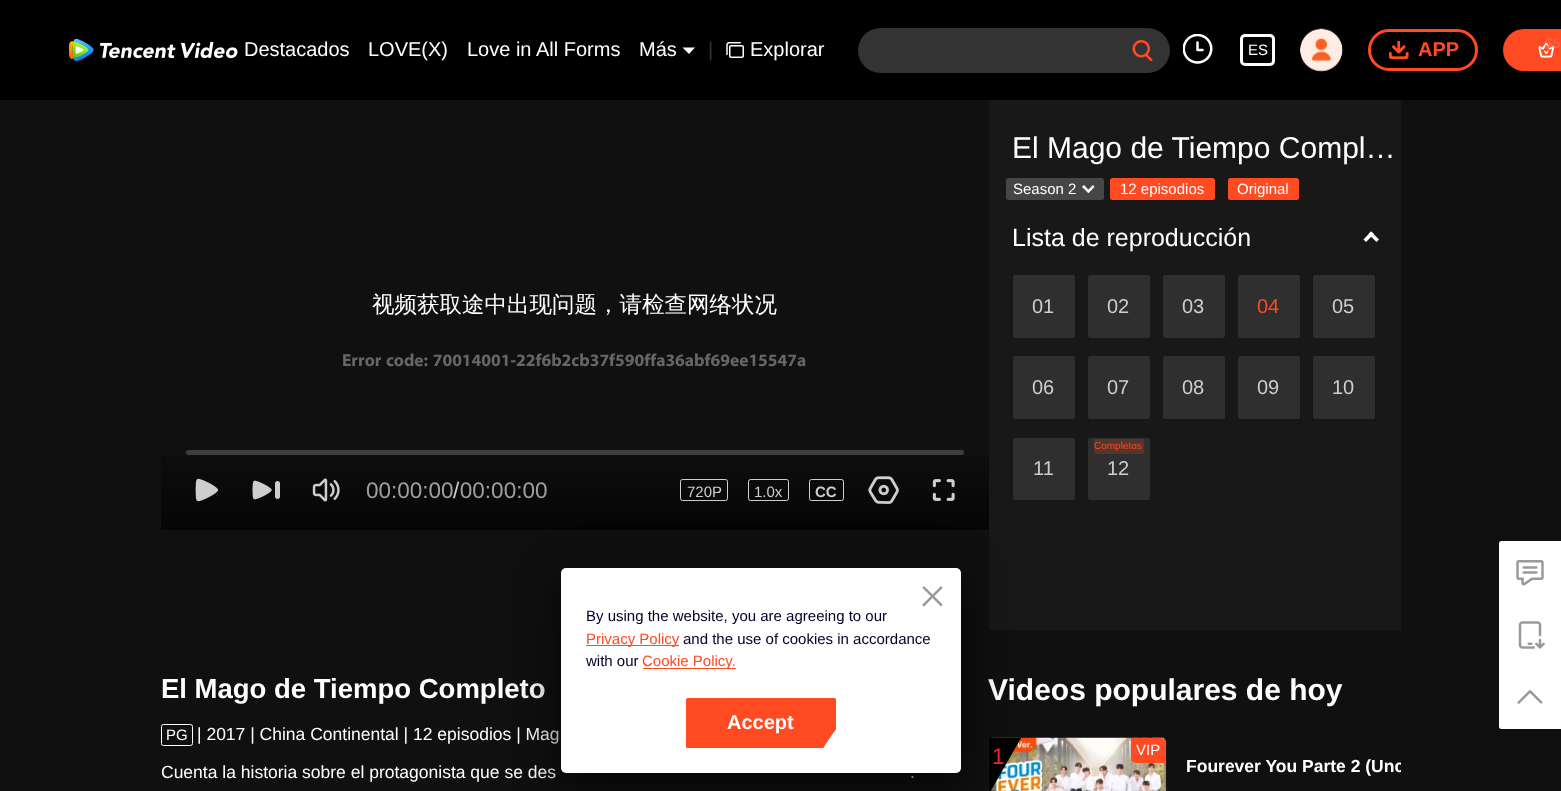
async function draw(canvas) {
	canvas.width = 1561;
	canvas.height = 791;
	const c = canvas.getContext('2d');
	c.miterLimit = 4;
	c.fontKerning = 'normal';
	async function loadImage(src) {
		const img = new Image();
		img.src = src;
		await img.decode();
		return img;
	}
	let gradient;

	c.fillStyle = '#101010';
	c.fillRect(0, 0, 1561, 791);
	c.fillStyle = '#000';
	c.fillRect(0, 0, 1561, 100);
	c.drawImage(await loadImage('img1.png'), 69, 38, 169, 24);
	c.font = '20px Liberation Sans';
	c.fillStyle = '#fff';
	for (const [text, x, y] of [
		['Destacados', 244, 56],
		['LOVE(X)', 368, 56],
		['Love in All Forms', 467, 56],
		['Más', 639, 56],
	]) {
		c.fillText(text, x, y);
	}
	c.beginPath();
	c.moveTo(682.5, 47.5);
	c.lineTo(695, 47.5);
	c.lineTo(689, 54);
	c.closePath();
	c.fill();
	c.fillStyle = '#333';
	c.fillText('|', 708, 56);
	c.drawImage(await loadImage('img2.png'), 726, 42, 18, 16);
	c.fillStyle = '#fff';
	c.fillText('Explorar', 750, 56);
	c.fillStyle = '#333';
	c.beginPath();
	c.roundRect(858, 28, 312, 45, 22.5);
	c.fill();
	c.drawImage(await loadImage('img3.png'), 1132, 40, 21, 22);
	c.drawImage(await loadImage('img4.png'), 1183, 34, 30, 30);
	c.beginPath();
	c.roundRect(1241.5, 35.5, 32, 29, 3.5);
	c.strokeStyle = '#fff';
	c.lineWidth = 3;
	c.stroke();
	c.font = '15px Liberation Sans';
	c.fillStyle = '#fff';
	c.fillText('ES', 1248, 55);
	c.drawImage(await loadImage('img5.png'), 1300, 28, 43, 44);
	c.beginPath();
	c.roundRect(1369.5, 30.5, 107, 39, 19.5);
	c.strokeStyle = '#ff4a22';
	c.stroke();
	c.drawImage(await loadImage('img6.png'), 1388, 40, 21, 20);
	c.font = 'bold 20px Liberation Sans';
	c.fillStyle = '#ff4a22';
	c.fillText('APP', 1418, 56);
	c.beginPath();
	c.roundRect(1503, 29, 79, 42, 21);
	c.fill();
	c.drawImage(await loadImage('img7.png'), 1538, 42, 17, 16);
	c.font = 'bold 14px Liberation Sans';
	c.fillStyle = '#ff613e';
	c.fillText('$5', 1545, 48);
	c.font = '500 22.5px WenQuanYi Zen Hei';
	c.fillStyle = '#fff';
	c.fillText('视频获取途中出现问题，请检查网络状况', 372, 312);
	c.font = 'bold 17.5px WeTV';
	c.fillStyle = '#666';
	c.fillText('Error code: 70014001-22f6b2cb37f590ffa36abf69ee15547a', 342, 366);
	gradient = c.createLinearGradient(575, 425, 575, 530);
	gradient.addColorStop(0, '#111');
	gradient.addColorStop(1, '#050505');
	c.fillStyle = gradient;
	c.fillRect(161, 456, 828, 74);
	c.fillStyle = '#3e3e3e';
	c.beginPath();
	c.roundRect(186, 450, 778, 5, 2.5);
	c.fill();
	c.drawImage(await loadImage('img8.png'), 195, 478, 24, 24);
	c.drawImage(await loadImage('img9.png'), 252, 480, 28, 20);
	c.drawImage(await loadImage('img10.png'), 312, 478, 28, 24);
	c.font = '22.5px Liberation Sans';
	c.fillStyle = '#9d9d9d';
	c.fillText('00:00:00 00:00:00', 366, 498);
	c.fillStyle = '#cecece';
	c.fillText('/', 453, 498);
	c.beginPath();
	c.roundRect(680.5, 479.5, 47, 21, 2);
	c.strokeStyle = '#ffffffcc';
	c.lineWidth = 1;
	c.stroke();
	c.font = '15px Liberation Sans';
	c.fillText('720P', 687, 497);
	c.beginPath();
	c.roundRect(748.5, 479.5, 40, 21, 2);
	c.stroke();
	c.fillText('1.0x', 754, 497);
	c.beginPath();
	c.roundRect(809.5, 479.5, 34, 21, 2);
	c.stroke();
	c.font = 'bold 15px Liberation Sans';
	c.fillText('CC', 815, 497);
	c.drawImage(await loadImage('img11.png'), 868, 476, 31, 28);
	c.drawImage(await loadImage('img12.png'), 932, 479, 23, 22);
	c.fillStyle = '#181818';
	c.fillRect(989, 100, 412, 530);
	c.font = '30px Liberation Sans';
	c.fillStyle = '#fff';
	c.fillText('El Mago de Tiempo Compl…', 1012, 158);
	c.fillStyle = '#464646';
	c.beginPath();
	c.roundRect(1006, 178, 98, 22, 2.5);
	c.fill();
	c.font = '15px Liberation Sans';
	c.fillStyle = '#fff';
	c.fillText('Season 2', 1013, 194);
	c.beginPath();
	c.moveTo(1086.5, 191.5);
	c.lineTo(1093, 185);
	c.lineTo(1094.5, 187);
	c.lineTo(1088.5, 193);
	c.closePath();
	c.fill();
	c.beginPath();
	c.moveTo(1082, 187);
	c.lineTo(1084, 185);
	c.lineTo(1090, 191.5);
	c.lineTo(1088.5, 193);
	c.closePath();
	c.fill();
	c.fillStyle = '#ff4a22';
	c.beginPath();
	c.roundRect(1110, 178, 105, 22, 2.5);
	c.fill();
	c.fillStyle = '#fff';
	c.fillText('12 episodios', 1120, 194);
	c.fillStyle = '#ff4a22';
	c.beginPath();
	c.roundRect(1228, 178, 71, 22, 2.5);
	c.fill();
	c.fillStyle = '#fff';
	c.fillText('Original', 1237, 194);
	c.font = '25px Liberation Sans';
	c.fillText('Lista de reproducción', 1012, 246);
	c.beginPath();
	c.moveTo(1366, 242);
	c.lineTo(1363.5, 239.5);
	c.lineTo(1371, 231.5);
	c.lineTo(1374, 234);
	c.closePath();
	c.fill();
	c.beginPath();
	c.moveTo(1376.5, 242);
	c.lineTo(1368.5, 234);
	c.lineTo(1371, 231.5);
	c.lineTo(1379, 239.5);
	c.closePath();
	c.fill();
	c.fillStyle = '#2f2f2f';
	c.beginPath();
	c.roundRect(1013, 275, 62, 63, 2.5);
	c.fill();
	c.font = '20px Liberation Sans';
	c.fillStyle = '#cecece';
	c.fillText('01', 1032, 313);
	c.fillStyle = '#2f2f2f';
	c.beginPath();
	c.roundRect(1088, 275, 62, 63, 2.5);
	c.fill();
	c.fillStyle = '#cecece';
	c.fillText('02', 1107, 313);
	c.fillStyle = '#2f2f2f';
	c.beginPath();
	c.roundRect(1163, 275, 62, 63, 2.5);
	c.fill();
	c.fillStyle = '#cecece';
	c.fillText('03', 1182, 313);
	c.fillStyle = '#2f2f2f';
	c.beginPath();
	c.roundRect(1238, 275, 62, 63, 2.5);
	c.fill();
	c.fillStyle = '#ff4a22';
	c.fillText('04', 1257, 313);
	c.fillStyle = '#2f2f2f';
	c.beginPath();
	c.roundRect(1313, 275, 62, 63, 2.5);
	c.fill();
	c.fillStyle = '#cecece';
	c.fillText('05', 1332, 313);
	c.fillStyle = '#2f2f2f';
	c.beginPath();
	c.roundRect(1013, 356, 62, 63, 2.5);
	c.fill();
	c.fillStyle = '#cecece';
	c.fillText('06', 1032, 394);
	c.fillStyle = '#2f2f2f';
	c.beginPath();
	c.roundRect(1088, 356, 62, 63, 2.5);
	c.fill();
	c.fillStyle = '#cecece';
	c.fillText('07', 1107, 394);
	c.fillStyle = '#2f2f2f';
	c.beginPath();
	c.roundRect(1163, 356, 62, 63, 2.5);
	c.fill();
	c.fillStyle = '#cecece';
	c.fillText('08', 1182, 394);
	c.fillStyle = '#2f2f2f';
	c.beginPath();
	c.roundRect(1238, 356, 62, 63, 2.5);
	c.fill();
	c.fillStyle = '#cecece';
	c.fillText('09', 1257, 394);
	c.fillStyle = '#2f2f2f';
	c.beginPath();
	c.roundRect(1313, 356, 62, 63, 2.5);
	c.fill();
	c.fillStyle = '#cecece';
	c.fillText('10', 1332, 394);
	c.fillStyle = '#2f2f2f';
	c.beginPath();
	c.roundRect(1013, 438, 62, 62, 2.5);
	c.fill();
	c.fillStyle = '#cecece';
	c.fillText('11', 1033, 475);
	c.fillStyle = '#2f2f2f';
	c.beginPath();
	c.roundRect(1088, 438, 62, 62, 2.5);
	c.fill();
	c.fillStyle = '#53362e';
	c.beginPath();
	c.roundRect(1094, 439, 50, 15, [0, 2, 0, 2]);
	c.fill();
	c.font = '10px Liberation Sans';
	c.fillStyle = '#ff4a22';
	c.fillText('Completos', 1094, 449);
	c.font = '20px Liberation Sans';
	c.fillStyle = '#cecece';
	c.fillText('12', 1107, 475);
	c.font = 'bold 27.5px Liberation Sans';
	c.fillStyle = '#fff';
	c.fillText('El Mago de Tiempo Completo', 161, 698);
	c.beginPath();
	c.roundRect(161.5, 724.5, 31, 21, 2);
	c.strokeStyle = '#fff';
	c.stroke();
	c.font = '15px Liberation Sans';
	c.fillText('PG', 166, 740);
	c.font = '17.5px Liberation Sans';
	for (const [text, x, y] of [
		['| 2017 | China Continental | 12 episodios | Mag', 197, 740],
		['Cuenta la historia sobre el protagonista que se des', 161, 778],
		['.', 910, 778],
	]) {
		c.fillText(text, x, y);
	}
	c.font = 'bold 30px Liberation Sans';
	c.fillText('Videos populares de hoy', 988, 700);
	c.drawImage(await loadImage('img13.png'), 988, 737, 179, 54);
	c.fillStyle = '#000';
	c.beginPath();
	c.moveTo(989, 738);
	c.lineTo(1021, 738);
	c.lineTo(989, 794);
	c.closePath();
	c.fill();
	c.font = '22.5px Liberation Sans';
	c.fillStyle = '#f22';
	c.fillText('1', 992, 764);
	c.fillStyle = '#ff4a22';
	c.beginPath();
	c.roundRect(1131, 738, 35, 25, [0, 5, 0, 5]);
	c.fill();
	c.font = '15px Liberation Sans';
	c.fillStyle = '#fff';
	c.fillText('VIP', 1136, 755);
	c.save();
	c.beginPath();
	c.rect(1186, 754, 215, 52);
	c.clip();
	c.font = 'bold 17.5px Liberation Sans';
	c.fillText('Fourever You Parte 2 (Unc', 1186, 772);
	c.restore();
	c.beginPath();
	c.roundRect(1499, 541, 62, 188, [2.5, 0, 0, 2.5]);
	c.fill();
	c.drawImage(await loadImage('img14.png'), 1516, 560, 28, 26);
	c.drawImage(await loadImage('img15.png'), 1518, 621, 27, 28);
	c.drawImage(await loadImage('img16.png'), 1517, 690, 26, 14);
	c.fillStyle = '#000000cc';
	c.filter = 'blur(22.5px)';
	c.beginPath();
	c.roundRect(561, 578, 400, 205, 5);
	c.fill();
	c.filter = 'none';
	c.fillStyle = '#fff';
	c.beginPath();
	c.roundRect(561, 568, 400, 205, 5);
	c.fill();
	c.drawImage(await loadImage('img17.png'), 922, 586, 21, 21);
	c.fillStyle = '#000028';
	c.fillText('By using the website, you are agreeing to our', 586, 621);
	c.fillStyle = '#ff4a22';
	c.fillRect(586, 645, 93, 1);
	c.fillText('Privacy Policy', 586, 644);
	c.fillStyle = '#000028';
	c.fillText('and the use of cookies in accordance', 683, 644);
	c.fillText('with our', 586, 666);
	c.fillStyle = '#ff4a22';
	c.fillRect(643, 668, 93, 1);
	c.fillText('Cookie Policy.', 642, 666);
	c.beginPath();
	c.moveTo(688, 698);
	c.lineTo(834, 698);
	c.lineTo(836, 699);
	c.lineTo(836, 729);
	c.lineTo(823, 748);
	c.lineTo(687, 748);
	c.bezierCurveTo(686, 747, 686, 746, 686, 746);
	c.lineTo(686, 700);
	c.bezierCurveTo(686, 699, 687, 698, 688, 698);
	c.closePath();
	c.fill();
	c.beginPath();
	c.moveTo(688, 698);
	c.bezierCurveTo(687, 698, 686, 699, 686, 700);
	c.lineTo(686, 746);
	c.bezierCurveTo(686, 746, 686, 747, 687, 748);
	c.lineTo(823, 748);
	c.lineTo(825, 745);
	c.lineTo(689, 745);
	c.lineTo(689, 701);
	c.lineTo(833, 701);
	c.lineTo(833, 733);
	c.lineTo(836, 729);
	c.lineTo(836, 699);
	c.lineTo(834, 698);
	c.closePath();
	c.fill();
	c.font = 'bold 20px Liberation Sans';
	c.fillStyle = '#fff';
	c.fillText('Accept', 727, 729);
}

draw(document.querySelector('canvas'));
